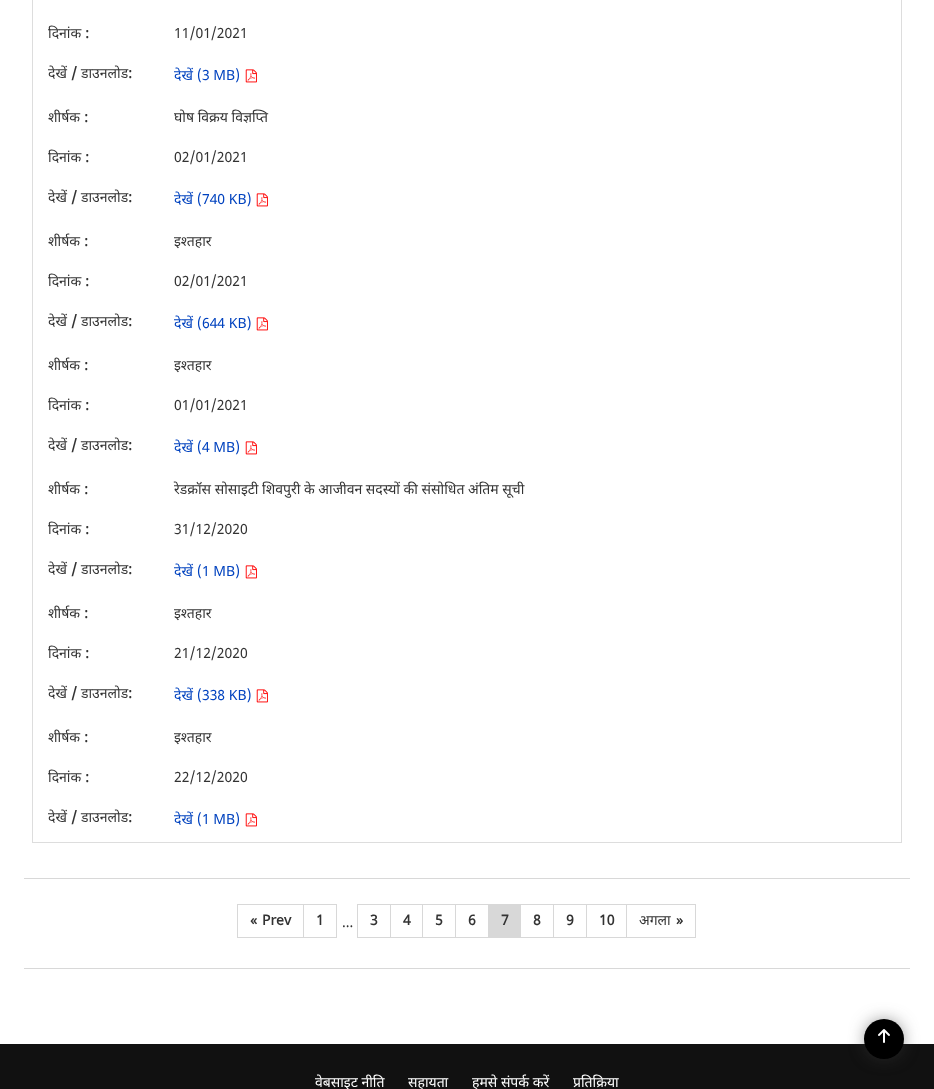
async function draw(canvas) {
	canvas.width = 934;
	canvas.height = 1089;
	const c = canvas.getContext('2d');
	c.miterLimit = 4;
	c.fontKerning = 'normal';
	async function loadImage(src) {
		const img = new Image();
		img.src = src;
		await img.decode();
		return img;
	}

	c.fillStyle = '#fff';
	c.fillRect(0, 0, 934, 1089);
	for (const [x, y, w, h, color] of [
		[901, 0, 1, 843, '#ddd'],
		[32, 842, 870, 1, '#ddd'],
		[32, 0, 1, 843, '#ddd'],
	]) {
		c.fillStyle = color;
		c.fillRect(x, y, w, h);
	}
	c.font = '14px Noto Sans';
	c.fillStyle = '#333';
	c.fillText('दिनांक', 48, 38);
	c.font = 'bold 14px Noto Sans';
	c.fillText(':', 85, 38);
	c.font = '14px "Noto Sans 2"';
	c.fillText('11/01/2021', 174, 38);
	c.font = '14px Noto Sans';
	c.fillText('देखें', 48, 78);
	c.font = 'bold 14px Noto Sans';
	c.fillText('/', 71, 78);
	c.font = '14px Noto Sans';
	c.fillText('डाउनलोड', 81, 78);
	c.font = 'bold 14px Noto Sans';
	c.fillText(':', 128, 78);
	c.font = '14px Noto Sans';
	c.fillStyle = '#0042bf';
	c.fillText('देखें', 174, 80);
	c.font = '14px "Noto Sans 2"';
	c.fillText('(3 MB)', 197, 80);
	c.drawImage(await loadImage('img1.png'), 245, 69, 12, 14);
	c.font = '14px Noto Sans';
	c.fillStyle = '#333';
	c.fillText('शीर्षक', 48, 122);
	c.font = 'bold 14px Noto Sans';
	c.fillText(':', 84, 122);
	c.font = '14px Noto Sans';
	c.fillText('घोष विक्रय विज्ञप्ति', 174, 122);
	c.fillText('दिनांक', 48, 162);
	c.font = 'bold 14px Noto Sans';
	c.fillText(':', 85, 162);
	c.font = '14px "Noto Sans 2"';
	c.fillText('02/01/2021', 174, 162);
	c.font = '14px Noto Sans';
	c.fillText('देखें', 48, 202);
	c.font = 'bold 14px Noto Sans';
	c.fillText('/', 71, 202);
	c.font = '14px Noto Sans';
	c.fillText('डाउनलोड', 81, 202);
	c.font = 'bold 14px Noto Sans';
	c.fillText(':', 128, 202);
	c.font = '14px Noto Sans';
	c.fillStyle = '#0042bf';
	c.fillText('देखें', 174, 204);
	c.font = '14px "Noto Sans 2"';
	c.fillText('(740 KB)', 197, 204);
	c.drawImage(await loadImage('img1.png'), 256, 193, 12, 14);
	c.font = '14px Noto Sans';
	c.fillStyle = '#333';
	c.fillText('शीर्षक', 48, 246);
	c.font = 'bold 14px Noto Sans';
	c.fillText(':', 84, 246);
	c.font = '14px Noto Sans';
	c.fillText('इश्तहार', 174, 246);
	c.fillText('दिनांक', 48, 286);
	c.font = 'bold 14px Noto Sans';
	c.fillText(':', 85, 286);
	c.font = '14px "Noto Sans 2"';
	c.fillText('02/01/2021', 174, 286);
	c.font = '14px Noto Sans';
	c.fillText('देखें', 48, 326);
	c.font = 'bold 14px Noto Sans';
	c.fillText('/', 71, 326);
	c.font = '14px Noto Sans';
	c.fillText('डाउनलोड', 81, 326);
	c.font = 'bold 14px Noto Sans';
	c.fillText(':', 128, 326);
	c.font = '14px Noto Sans';
	c.fillStyle = '#0042bf';
	c.fillText('देखें', 174, 328);
	c.font = '14px "Noto Sans 2"';
	c.fillText('(644 KB)', 197, 328);
	c.drawImage(await loadImage('img1.png'), 256, 317, 12, 14);
	c.font = '14px Noto Sans';
	c.fillStyle = '#333';
	c.fillText('शीर्षक', 48, 370);
	c.font = 'bold 14px Noto Sans';
	c.fillText(':', 84, 370);
	c.font = '14px Noto Sans';
	c.fillText('इश्तहार', 174, 370);
	c.fillText('दिनांक', 48, 410);
	c.font = 'bold 14px Noto Sans';
	c.fillText(':', 85, 410);
	c.font = '14px "Noto Sans 2"';
	c.fillText('01/01/2021', 174, 410);
	c.font = '14px Noto Sans';
	c.fillText('देखें', 48, 450);
	c.font = 'bold 14px Noto Sans';
	c.fillText('/', 71, 450);
	c.font = '14px Noto Sans';
	c.fillText('डाउनलोड', 81, 450);
	c.font = 'bold 14px Noto Sans';
	c.fillText(':', 128, 450);
	c.font = '14px Noto Sans';
	c.fillStyle = '#0042bf';
	c.fillText('देखें', 174, 452);
	c.font = '14px "Noto Sans 2"';
	c.fillText('(4 MB)', 197, 452);
	c.drawImage(await loadImage('img1.png'), 245, 441, 12, 14);
	c.font = '14px Noto Sans';
	c.fillStyle = '#333';
	c.fillText('शीर्षक', 48, 494);
	c.font = 'bold 14px Noto Sans';
	c.fillText(':', 84, 494);
	c.font = '14px Noto Sans';
	c.fillText('रेडक्रॉस सोसाइटी शिवपुरी के आजीवन सदस्यों की संसोधित अंतिम सूची', 174, 494);
	c.fillText('दिनांक', 48, 534);
	c.font = 'bold 14px Noto Sans';
	c.fillText(':', 85, 534);
	c.font = '14px "Noto Sans 2"';
	c.fillText('31/12/2020', 174, 534);
	c.font = '14px Noto Sans';
	c.fillText('देखें', 48, 574);
	c.font = 'bold 14px Noto Sans';
	c.fillText('/', 71, 574);
	c.font = '14px Noto Sans';
	c.fillText('डाउनलोड', 81, 574);
	c.font = 'bold 14px Noto Sans';
	c.fillText(':', 128, 574);
	c.font = '14px Noto Sans';
	c.fillStyle = '#0042bf';
	c.fillText('देखें', 174, 576);
	c.font = '14px "Noto Sans 2"';
	c.fillText('(1 MB)', 197, 576);
	c.drawImage(await loadImage('img1.png'), 245, 565, 12, 14);
	c.font = '14px Noto Sans';
	c.fillStyle = '#333';
	c.fillText('शीर्षक', 48, 618);
	c.font = 'bold 14px Noto Sans';
	c.fillText(':', 84, 618);
	c.font = '14px Noto Sans';
	c.fillText('इश्तहार', 174, 618);
	c.fillText('दिनांक', 48, 658);
	c.font = 'bold 14px Noto Sans';
	c.fillText(':', 85, 658);
	c.font = '14px "Noto Sans 2"';
	c.fillText('21/12/2020', 174, 658);
	c.font = '14px Noto Sans';
	c.fillText('देखें', 48, 698);
	c.font = 'bold 14px Noto Sans';
	c.fillText('/', 71, 698);
	c.font = '14px Noto Sans';
	c.fillText('डाउनलोड', 81, 698);
	c.font = 'bold 14px Noto Sans';
	c.fillText(':', 128, 698);
	c.font = '14px Noto Sans';
	c.fillStyle = '#0042bf';
	c.fillText('देखें', 174, 700);
	c.font = '14px "Noto Sans 2"';
	c.fillText('(338 KB)', 197, 700);
	c.drawImage(await loadImage('img1.png'), 256, 689, 12, 14);
	c.font = '14px Noto Sans';
	c.fillStyle = '#333';
	c.fillText('शीर्षक', 48, 742);
	c.font = 'bold 14px Noto Sans';
	c.fillText(':', 84, 742);
	c.font = '14px Noto Sans';
	c.fillText('इश्तहार', 174, 742);
	c.fillText('दिनांक', 48, 782);
	c.font = 'bold 14px Noto Sans';
	c.fillText(':', 85, 782);
	c.font = '14px "Noto Sans 2"';
	c.fillText('22/12/2020', 174, 782);
	c.font = '14px Noto Sans';
	c.fillText('देखें', 48, 822);
	c.font = 'bold 14px Noto Sans';
	c.fillText('/', 71, 822);
	c.font = '14px Noto Sans';
	c.fillText('डाउनलोड', 81, 822);
	c.font = 'bold 14px Noto Sans';
	c.fillText(':', 128, 822);
	c.font = '14px Noto Sans';
	c.fillStyle = '#0042bf';
	c.fillText('देखें', 174, 824);
	c.font = '14px "Noto Sans 2"';
	c.fillText('(1 MB)', 197, 824);
	c.drawImage(await loadImage('img1.png'), 245, 813, 12, 14);
	c.fillStyle = '#d8d8d8';
	c.fillRect(24, 878, 886, 1);
	c.fillRect(24, 968, 886, 1);
	c.strokeStyle = '#d8d8d8';
	c.strokeRect(237.5, 904.5, 66, 33);
	c.font = 'bold 14px Noto Sans';
	c.fillStyle = '#333';
	c.fillText('«', 250, 925);
	c.fillText('Prev', 262, 925);
	c.strokeRect(303.5, 904.5, 33, 33);
	c.fillText('1', 316, 925);
	c.strokeRect(357.5, 904.5, 33, 33);
	c.fillText('3', 370, 925);
	c.strokeRect(390.5, 904.5, 32, 33);
	c.fillText('4', 403, 925);
	c.strokeRect(422.5, 904.5, 33, 33);
	c.fillText('5', 435, 925);
	c.strokeRect(455.5, 904.5, 33, 33);
	c.fillText('6', 468, 925);
	c.fillStyle = '#d8d8d8';
	c.fillRect(489, 904, 31, 34);
	c.fillStyle = '#333';
	c.fillText('7', 501, 925);
	c.strokeRect(520.5, 904.5, 33, 33);
	c.fillText('8', 533, 925);
	c.strokeRect(553.5, 904.5, 33, 33);
	c.fillText('9', 566, 925);
	c.strokeRect(586.5, 904.5, 40, 33);
	c.fillText('10', 599, 925);
	c.strokeRect(626.5, 904.5, 69, 33);
	c.font = '14px Noto Sans';
	c.fillText('अगला', 639, 925);
	c.font = 'bold 14px Noto Sans';
	c.fillText('»', 676, 925);
	c.font = '14px "Noto Sans 2"';
	c.fillText('...', 342, 927);
	c.fillStyle = '#111';
	c.fillRect(0, 1044, 934, 45);
	c.font = '14px Noto Sans';
	c.fillStyle = '#fff';
	for (const [text, x, y] of [
		['वेबसाइट नीति', 315, 1087],
		['सहायता', 408, 1087],
		['हमसे संपर्क करें', 472, 1087],
		['प्रतिक्रिया', 573, 1087],
	]) {
		c.fillText(text, x, y);
	}
	c.fillStyle = '#3c3c3c';
	c.filter = 'blur(9.5px)';
	c.beginPath();
	c.roundRect(869, 1024, 30, 30, 15);
	c.fill();
	c.filter = 'none';
	c.fillStyle = '#000';
	c.beginPath();
	c.arc(884, 1039, 20, 0, 2 * Math.PI);
	c.fill();
	c.drawImage(await loadImage('img2.png'), 878, 1029, 12, 14);
}

draw(document.querySelector('canvas'));
